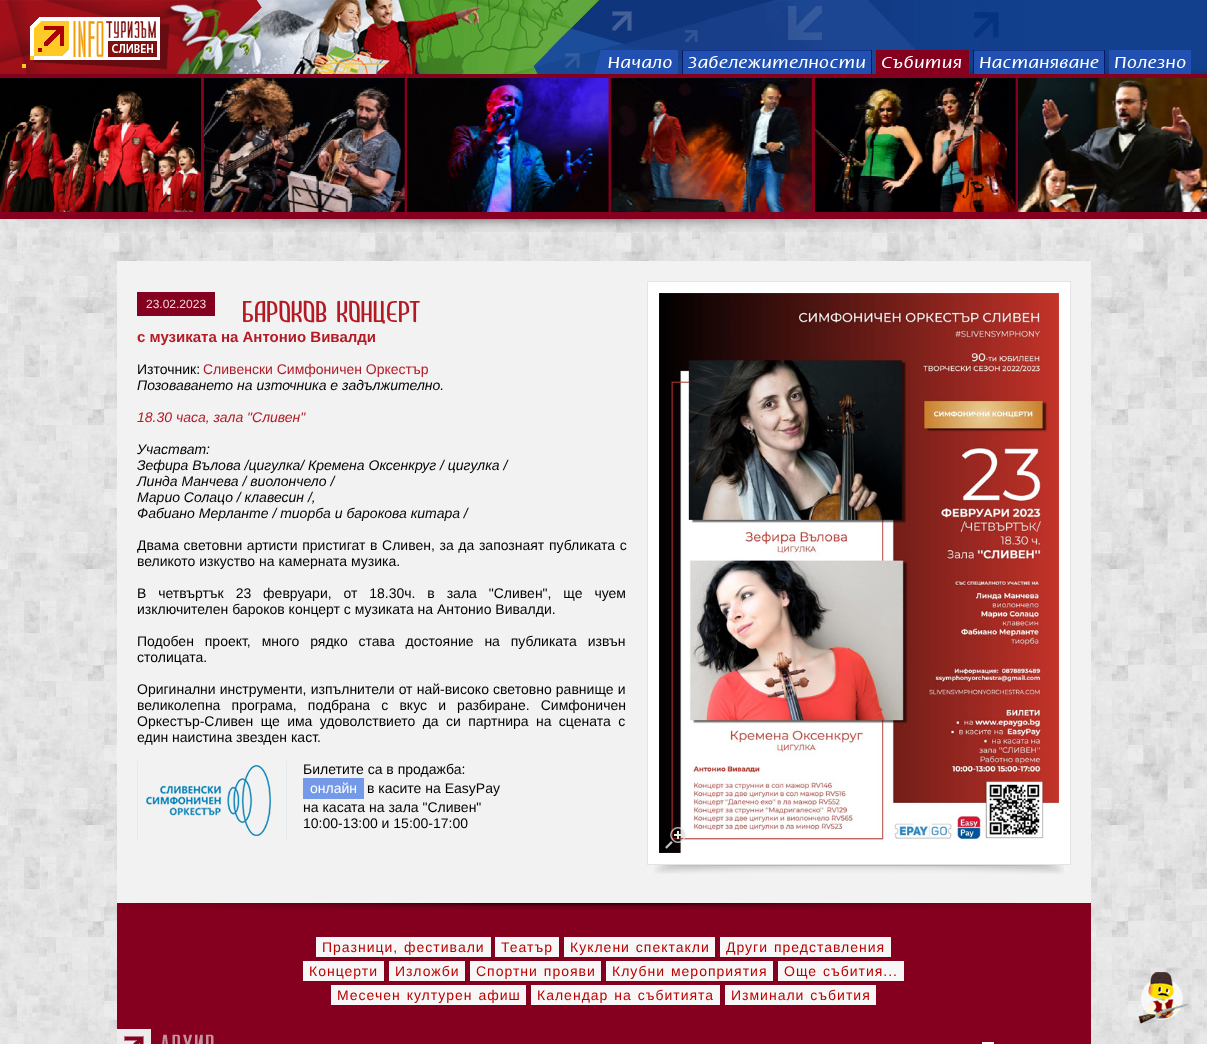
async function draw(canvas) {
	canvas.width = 1207;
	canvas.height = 1044;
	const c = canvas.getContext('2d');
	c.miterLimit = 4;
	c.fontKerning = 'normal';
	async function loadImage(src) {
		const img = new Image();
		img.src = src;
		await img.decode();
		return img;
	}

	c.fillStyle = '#fff';
	c.fillRect(0, 0, 1207, 1044);
	c.drawImage(await loadImage('img1.png'), 0, 0, 1207, 74);
	c.drawImage(await loadImage('img2.png'), 22, 17, 138, 51);
	c.drawImage(await loadImage('img3.png'), 594, 50, 7, 24);
	c.drawImage(await loadImage('img4.png'), 601, 50, 77, 24);
	c.drawImage(await loadImage('img5.png'), 682, 50, 190, 24);
	c.drawImage(await loadImage('img6.png'), 876, 50, 93, 24);
	c.drawImage(await loadImage('img7.png'), 973, 50, 132, 24);
	c.drawImage(await loadImage('img8.png'), 1109, 50, 82, 24);
	c.fillStyle = '#84001e';
	c.fillRect(0, 74, 1207, 4);
	c.fillRect(201, 78, 817, 134);
	c.drawImage(await loadImage('img9.png'), 0, 78, 201, 134);
	c.drawImage(await loadImage('img10.png'), 204, 78, 201, 134);
	c.drawImage(await loadImage('img11.png'), 407, 78, 202, 134);
	c.drawImage(await loadImage('img12.png'), 610, 78, 202, 134);
	c.drawImage(await loadImage('img13.png'), 815, 78, 201, 134);
	c.drawImage(await loadImage('img14.png'), 1018, 78, 189, 134);
	c.fillRect(0, 212, 1207, 7);
	c.drawImage(await loadImage('img15.png'), 0, 219, 1207, 825);
	c.drawImage(await loadImage('img16.png'), 9, 219, 950, 13);
	c.fillStyle = '#f2f2f2';
	c.fillRect(117, 261, 974, 642);
	c.fillStyle = '#84001e';
	c.fillRect(137, 292, 78, 24);
	c.font = '12px Liberation Sans';
	c.fillStyle = '#ecd7db';
	c.fillText('23.02.2023', 146, 308);
	c.font = '30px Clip';
	c.fillStyle = '#b41a24';
	c.fillText('Бароков концерт', 242, 322);
	c.fillStyle = '#e4e4e4';
	c.fillRect(647, 281, 424, 584);
	c.fillStyle = '#fff';
	c.fillRect(648, 282, 422, 582);
	c.drawImage(await loadImage('img17.png'), 659, 293, 400, 560);
	c.drawImage(await loadImage('img18.png'), 665, 827, 21, 22);
	c.drawImage(await loadImage('img19.png'), 654, 865, 410, 9);
	c.font = 'bold 15px Liberation Sans';
	c.fillStyle = '#b41a24';
	c.fillText('с музиката на Антонио Вивалди', 137, 342);
	c.font = '14px Liberation Sans';
	c.fillStyle = '#000';
	c.fillText('Източник:', 137, 374);
	c.fillStyle = '#b41a24';
	c.fillText('Сливенски Симфоничен Оркестър', 203, 374);
	c.font = 'italic 14px Liberation Sans';
	c.fillStyle = '#000';
	c.fillText('Позоваването на източника е задължително.', 137, 390);
	c.fillStyle = '#b41a24';
	c.fillText('18.30 часа, зала "Сливен"', 137, 422);
	c.fillStyle = '#000';
	for (const [text, x, y] of [
		['Участват:', 137, 454],
		['Зефира Вълова /цигулка/ Кремена Оксенкруг / цигулка /', 137, 470],
		['Линда Манчева / виолончело /', 137, 486],
		['Марио Солацо / клавесин /,', 137, 502],
		['Фабиано Мерланте / тиорба и барокова китара /', 137, 518],
	]) {
		c.fillText(text, x, y);
	}
	c.wordSpacing = '0.75px';
	c.font = '14px Liberation Sans';
	c.fillText('Двама световни артисти пристигат в Сливен, за да запознаят публиката с', 137, 550);
	c.wordSpacing = '0px';
	c.fillText('великото изкуство на камерната музика.', 137, 566);
	c.wordSpacing = '8px';
	c.fillText('В четвъртък 23 февруари, от 18.30ч. в зала "Сливен", ще чуем', 137, 598);
	c.wordSpacing = '0px';
	c.fillText('изключителен бароков концерт с музиката на Антонио Вивалди.', 137, 614);
	c.wordSpacing = '7px';
	c.fillText('Подобен проект, много рядко става достояние на публиката извън', 137, 646);
	c.wordSpacing = '0px';
	c.fillText('столицата.', 137, 662);
	c.wordSpacing = '0.25px';
	c.fillText('Оригинални инструменти, изпълнители от най-високо световно равнище и', 137, 694);
	c.wordSpacing = '7.25px';
	c.fillText('великолепна програма, подбрана с вкус и разбиране. Симфоничен', 137, 710);
	c.wordSpacing = '3.5px';
	c.fillText('Оркестър-Сливен ще има удоволствието да си партнира на сцената с', 137, 726);
	c.wordSpacing = '0px';
	c.fillText('един наистина звезден каст.', 137, 742);
	c.drawImage(await loadImage('img20.png'), 137, 761, 150, 80);
	c.fillText('Билетите са в продажба:', 303, 774);
	c.fillStyle = '#7399e8';
	c.fillRect(303, 778, 61, 21);
	c.fillStyle = '#fff';
	c.fillText('онлайн', 310, 793);
	c.fillStyle = '#000';
	for (const [text, x, y] of [
		['в касите на EasyPay', 367, 793],
		['на касата на зала "Сливен"', 303, 812],
		['10:00-13:00 и 15:00-17:00', 303, 828],
	]) {
		c.fillText(text, x, y);
	}
	c.fillStyle = '#84001e';
	c.fillRect(117, 903, 974, 141);
	c.drawImage(await loadImage('img21.png'), 117, 903, 936, 7);
	c.fillStyle = '#f7f7f7';
	c.fillRect(316, 937, 175, 20);
	c.letterSpacing = '1px';
	c.wordSpacing = '1px';
	c.fillStyle = '#b00';
	c.fillText('Празници, фестивали', 322, 952);
	c.fillStyle = '#f7f7f7';
	c.fillRect(495, 937, 64, 20);
	c.wordSpacing = '0px';
	c.fillStyle = '#b00';
	c.fillText('Театър', 501, 952);
	c.fillStyle = '#f7f7f7';
	c.fillRect(564, 937, 151, 20);
	c.wordSpacing = '1px';
	c.fillStyle = '#b00';
	c.fillText('Куклени спектакли', 570, 952);
	c.fillStyle = '#f7f7f7';
	c.fillRect(720, 937, 171, 20);
	c.fillStyle = '#b00';
	c.fillText('Други представления', 726, 952);
	c.fillStyle = '#f7f7f7';
	c.fillRect(303, 961, 81, 20);
	c.wordSpacing = '0px';
	c.fillStyle = '#b00';
	c.fillText('Концерти', 309, 976);
	c.fillStyle = '#f7f7f7';
	c.fillRect(389, 961, 76, 20);
	c.fillStyle = '#b00';
	c.fillText('Изложби', 395, 976);
	c.fillStyle = '#f7f7f7';
	c.fillRect(470, 961, 131, 20);
	c.wordSpacing = '1px';
	c.fillStyle = '#b00';
	c.fillText('Спортни прояви', 476, 976);
	c.fillStyle = '#f7f7f7';
	c.fillRect(606, 961, 167, 20);
	c.fillStyle = '#b00';
	c.fillText('Клубни мероприятия', 612, 976);
	c.fillStyle = '#f7f7f7';
	c.fillRect(778, 961, 126, 20);
	c.fillStyle = '#b00';
	c.fillText('Още събития...', 784, 976);
	c.fillStyle = '#f7f7f7';
	c.fillRect(331, 985, 195, 20);
	c.fillStyle = '#b00';
	c.fillText('Месечен културен афиш', 337, 1000);
	c.fillStyle = '#f7f7f7';
	c.fillRect(531, 985, 189, 20);
	c.fillStyle = '#b00';
	c.fillText('Календар на събитията', 537, 1000);
	c.fillStyle = '#f7f7f7';
	c.fillRect(725, 985, 151, 20);
	c.fillStyle = '#b00';
	c.fillText('Изминали събития', 731, 1000);
	c.drawImage(await loadImage('img22.png'), 117, 1029, 97, 15);
	c.fillStyle = '#fff';
	c.fillRect(982, 1042, 12, 2);
	c.drawImage(await loadImage('img23.png'), 1138, 972, 51, 52);
}

draw(document.querySelector('canvas'));
